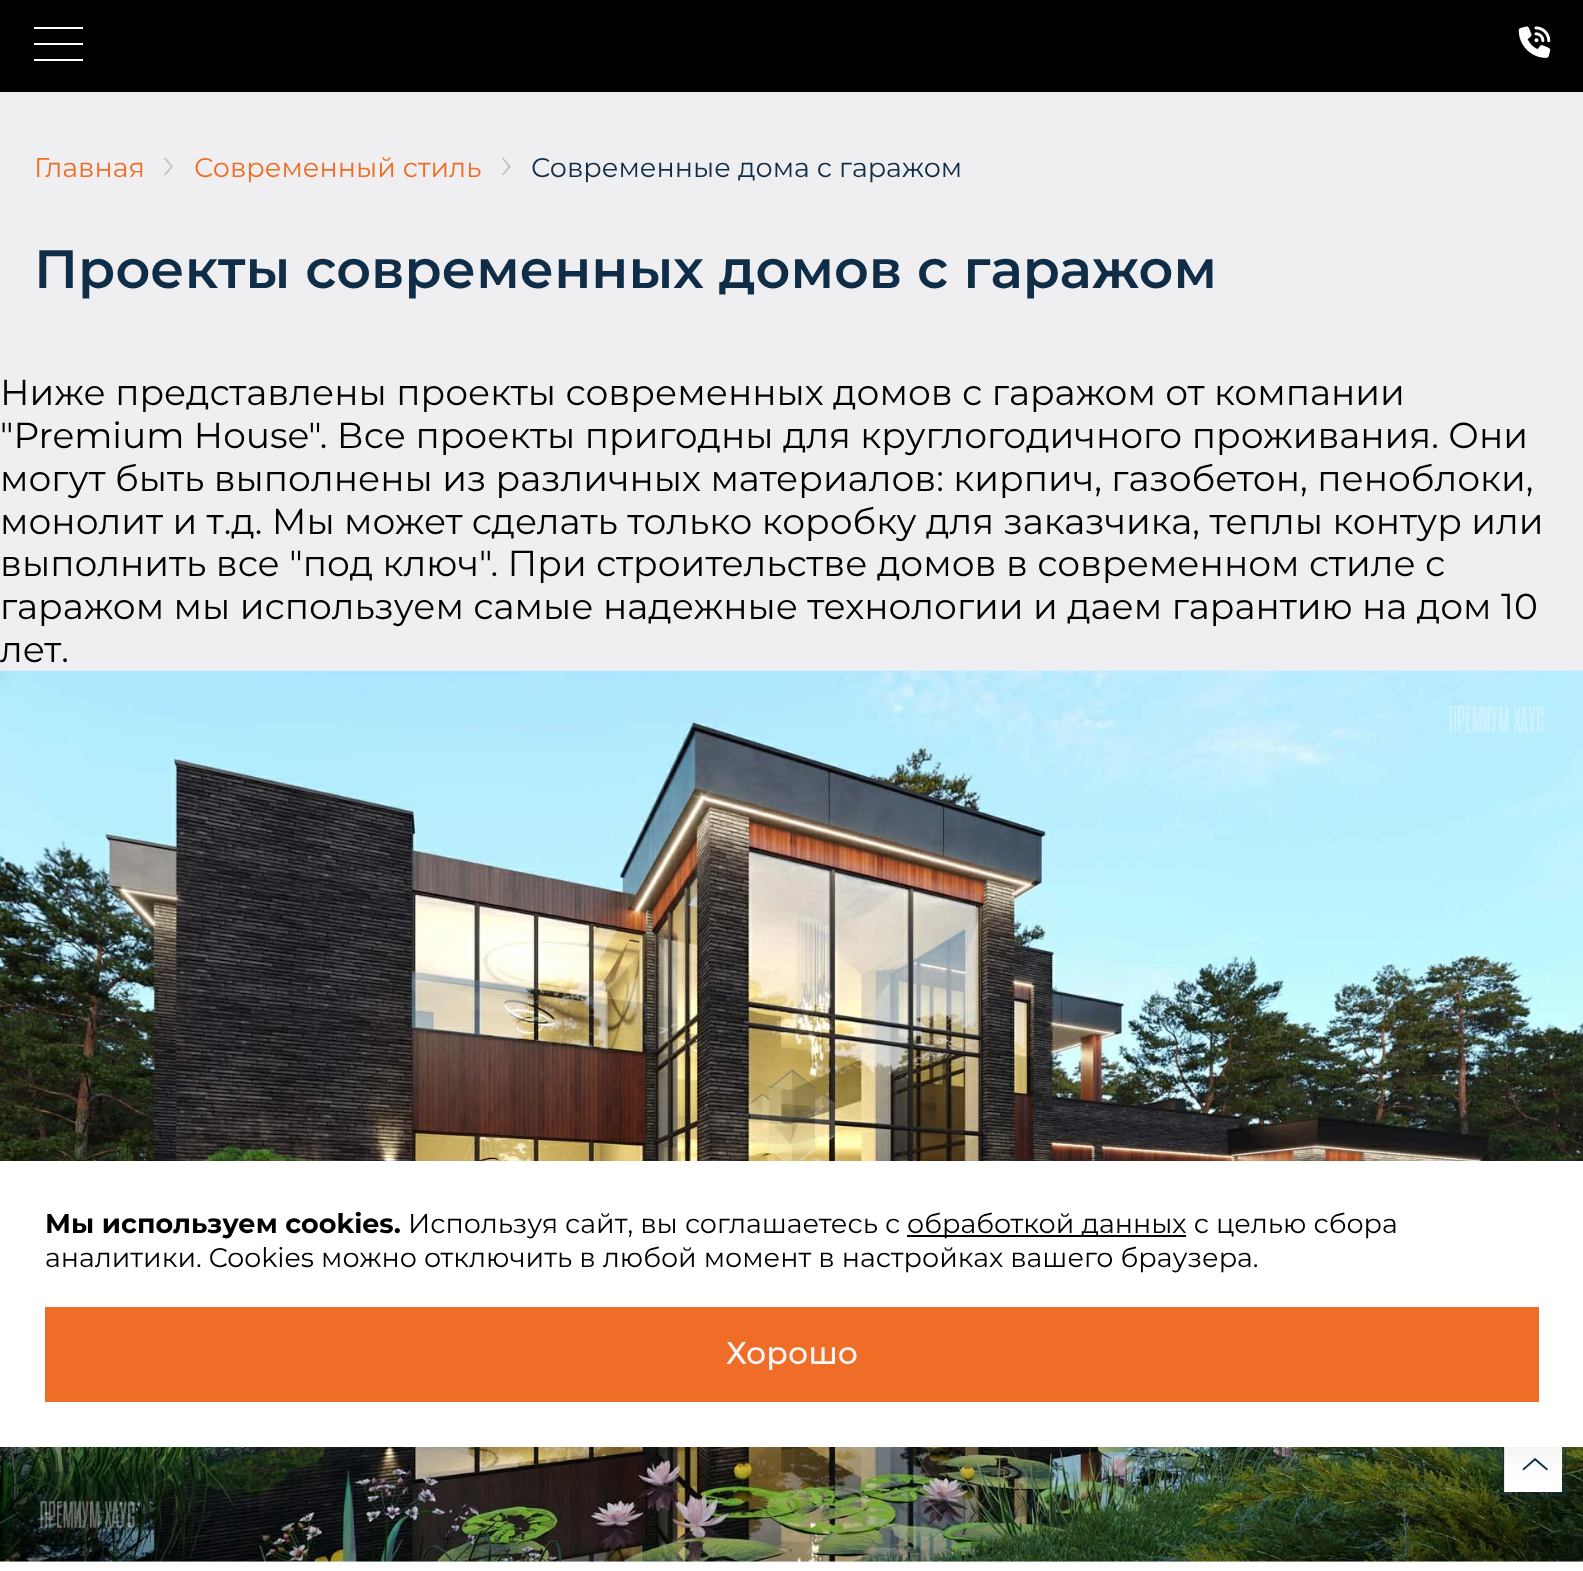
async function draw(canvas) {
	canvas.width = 1583;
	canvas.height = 1571;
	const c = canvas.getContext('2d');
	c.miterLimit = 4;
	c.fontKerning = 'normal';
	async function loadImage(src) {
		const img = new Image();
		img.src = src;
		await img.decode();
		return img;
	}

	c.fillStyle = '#efeff1';
	c.fillRect(0, 0, 1583, 1571);
	for (const [x, y, w, h, color] of [
		[0, 0, 1583, 92, '#000'],
		[34, 27, 49, 2, '#fff'],
		[34, 43, 49, 2, '#fff'],
		[34, 59, 49, 2, '#fff'],
	]) {
		c.fillStyle = color;
		c.fillRect(x, y, w, h);
	}
	c.drawImage(await loadImage('img1.png'), 1518, 26, 33, 32);
	c.font = '27px Montserrat';
	c.fillStyle = '#ef6d27';
	c.fillText('Главная', 34, 177);
	c.fillStyle = '#c1c1c1';
	c.beginPath();
	c.moveTo(171, 166.5);
	c.lineTo(164, 158.5);
	c.lineTo(165.5, 157.5);
	c.lineTo(173, 166.5);
	c.lineTo(165.5, 175.5);
	c.lineTo(164, 174.5);
	c.closePath();
	c.fill();
	c.fillStyle = '#ef6d27';
	c.fillText('Современный стиль', 194, 177);
	c.fillStyle = '#c1c1c1';
	c.beginPath();
	c.moveTo(508.5, 166.5);
	c.lineTo(502, 158.5);
	c.lineTo(503, 157.5);
	c.lineTo(511, 166.5);
	c.lineTo(503, 175.5);
	c.lineTo(502, 174.5);
	c.closePath();
	c.fill();
	c.fillStyle = '#102d47';
	c.fillText('Современные дома с гаражом', 531, 177);
	c.font = '600 54px Montserrat';
	c.fillText('Проекты современных домов с гаражом', 34, 288);
	c.font = '36px Montserrat';
	c.fillStyle = '#000';
	for (const [text, x, y] of [
		['Ниже представлены проекты современных домов с гаражом от компании', 0, 405],
		['"Premium House". Все проекты пригодны для круглогодичного проживания. Они', 0, 448],
		['могут быть выполнены из различных материалов: кирпич, газобетон, пеноблоки,', 0, 491],
		['монолит и т.д. Мы может сделать только коробку для заказчика, теплы контур или', 0, 534],
		['выполнить все "под ключ". При строительстве домов в современном стиле с', 0, 576],
		['гаражом мы используем самые надежные технологии и даем гарантию на дом 10', 0, 619],
		['лет.', 0, 662],
	]) {
		c.fillText(text, x, y);
	}
	c.drawImage(await loadImage('img2.png'), 0, 670, 1583, 892);
	c.fillStyle = '#fff';
	c.fillRect(0, 1562, 1583, 9);
	c.fillRect(1504, 1447, 58, 45);
	c.save();
	c.beginPath();
	c.rect(1503, 1433, 63, 63);
	c.clip();
	c.beginPath();
	c.moveTo(1565.5, 1434);
	c.lineTo(1565.5, 1495.5);
	c.lineTo(1503.5, 1495.5);
	c.lineTo(1503.5, 1434);
	c.closePath();
	c.strokeStyle = '#102d47';
	c.lineWidth = 1.2;
	c.stroke();
	c.restore();
	c.fillStyle = '#102d47';
	c.beginPath();
	c.moveTo(1547, 1471.5);
	c.lineTo(1535, 1461.5);
	c.lineTo(1523.5, 1471.5);
	c.lineTo(1521.5, 1469);
	c.lineTo(1535, 1457);
	c.lineTo(1549, 1469);
	c.closePath();
	c.fill();
	c.strokeStyle = '#fff';
	c.lineWidth = 1.4;
	c.stroke();
	c.fillStyle = '#33333d12';
	c.filter = 'blur(12.5px)';
	c.beginPath();
	c.rect(0, 1170, 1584, 286);
	c.fill();
	c.filter = 'none';
	c.fillStyle = '#fff';
	c.fillRect(0, 1161, 1583, 286);
	c.font = 'bold 27px Montserrat';
	c.fillStyle = '#000';
	c.fillText('Мы используем cookies.', 45, 1233);
	c.font = '27px Montserrat';
	c.fillText('Используя сайт, вы соглашаетесь с', 408, 1233);
	c.fillRect(907, 1235, 279, 2);
	c.fillText('обработкой данных с целью сбора', 907, 1233);
	c.fillText('аналитики. Cookies можно отключить в любой момент в настройках вашего браузера.', 45, 1267);
	c.fillStyle = '#ef6d27';
	c.fillRect(45, 1307, 1494, 95);
	c.font = '500 31.5px Montserrat';
	c.fillStyle = '#f5f5f5';
	c.fillText('Хорошо', 726, 1364);
}

draw(document.querySelector('canvas'));
